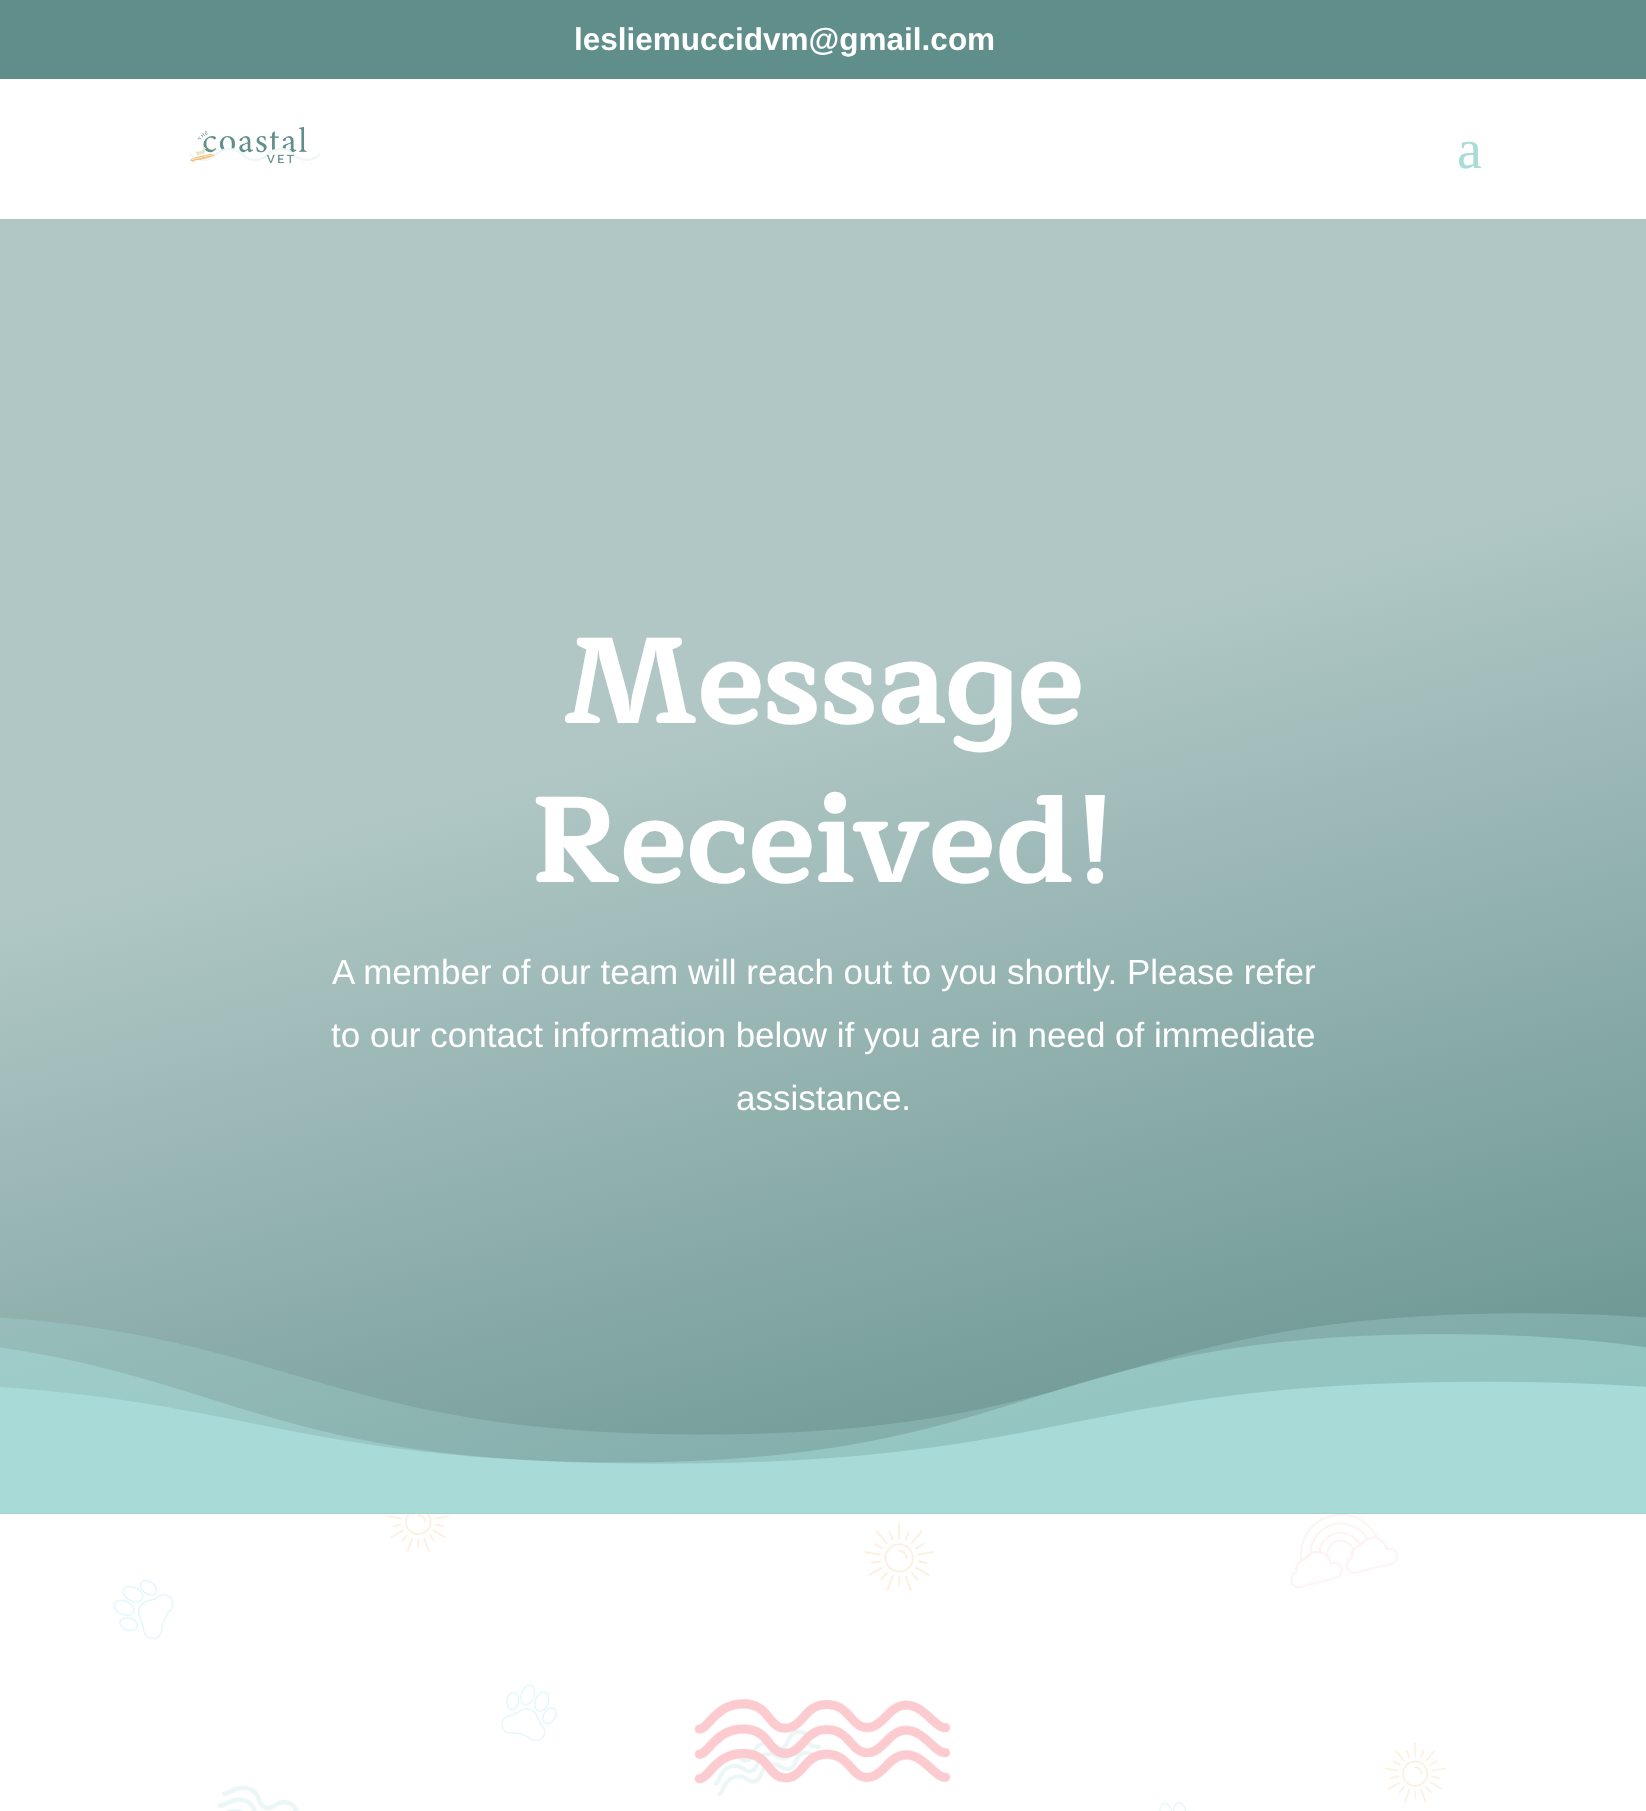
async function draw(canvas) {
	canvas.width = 1646;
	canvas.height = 1811;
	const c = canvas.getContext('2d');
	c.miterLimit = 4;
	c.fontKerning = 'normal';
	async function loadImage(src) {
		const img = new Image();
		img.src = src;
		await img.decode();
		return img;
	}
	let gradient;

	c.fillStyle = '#fff';
	c.fillRect(0, 0, 1646, 1811);
	c.fillStyle = '#608e8b';
	c.fillRect(0, 0, 1646, 79);
	c.font = 'bold 31.5px Liberation Sans';
	c.fillStyle = '#fff';
	c.fillText('lesliemuccidvm@gmail.com', 574, 50);
	c.drawImage(await loadImage('img1.png'), 189, 126, 132, 38);
	c.font = '56px Liberation Serif';
	c.fillStyle = '#a9dbd7';
	c.fillText('a', 1457, 168);
	gradient = c.createLinearGradient(606, 56, 1040, 1676);
	gradient.addColorStop(0.4, '#b0c7c5');
	gradient.addColorStop(1, '#608e8b');
	c.fillStyle = gradient;
	c.fillRect(0, 219, 1646, 1295);
	c.font = 'bold 122.5px Maitree';
	c.fillStyle = '#fff';
	c.fillText('Message', 563, 723);
	c.fillText('Received!', 530, 882);
	c.font = '35px Liberation Sans';
	for (const [text, x, y] of [
		['A member of our team will reach out to you shortly. Please refer', 332, 984],
		['to our contact information below if you are in need of immediate', 331, 1047],
		['assistance.', 736, 1110],
	]) {
		c.fillText(text, x, y);
	}
	c.drawImage(await loadImage('img2.png'), 0, 1313, 1646, 201);
	c.drawImage(await loadImage('img3.png'), 113, 1513, 1333, 298);
	c.drawImage(await loadImage('img4.png'), 694, 1699, 257, 85);
}

draw(document.querySelector('canvas'));
